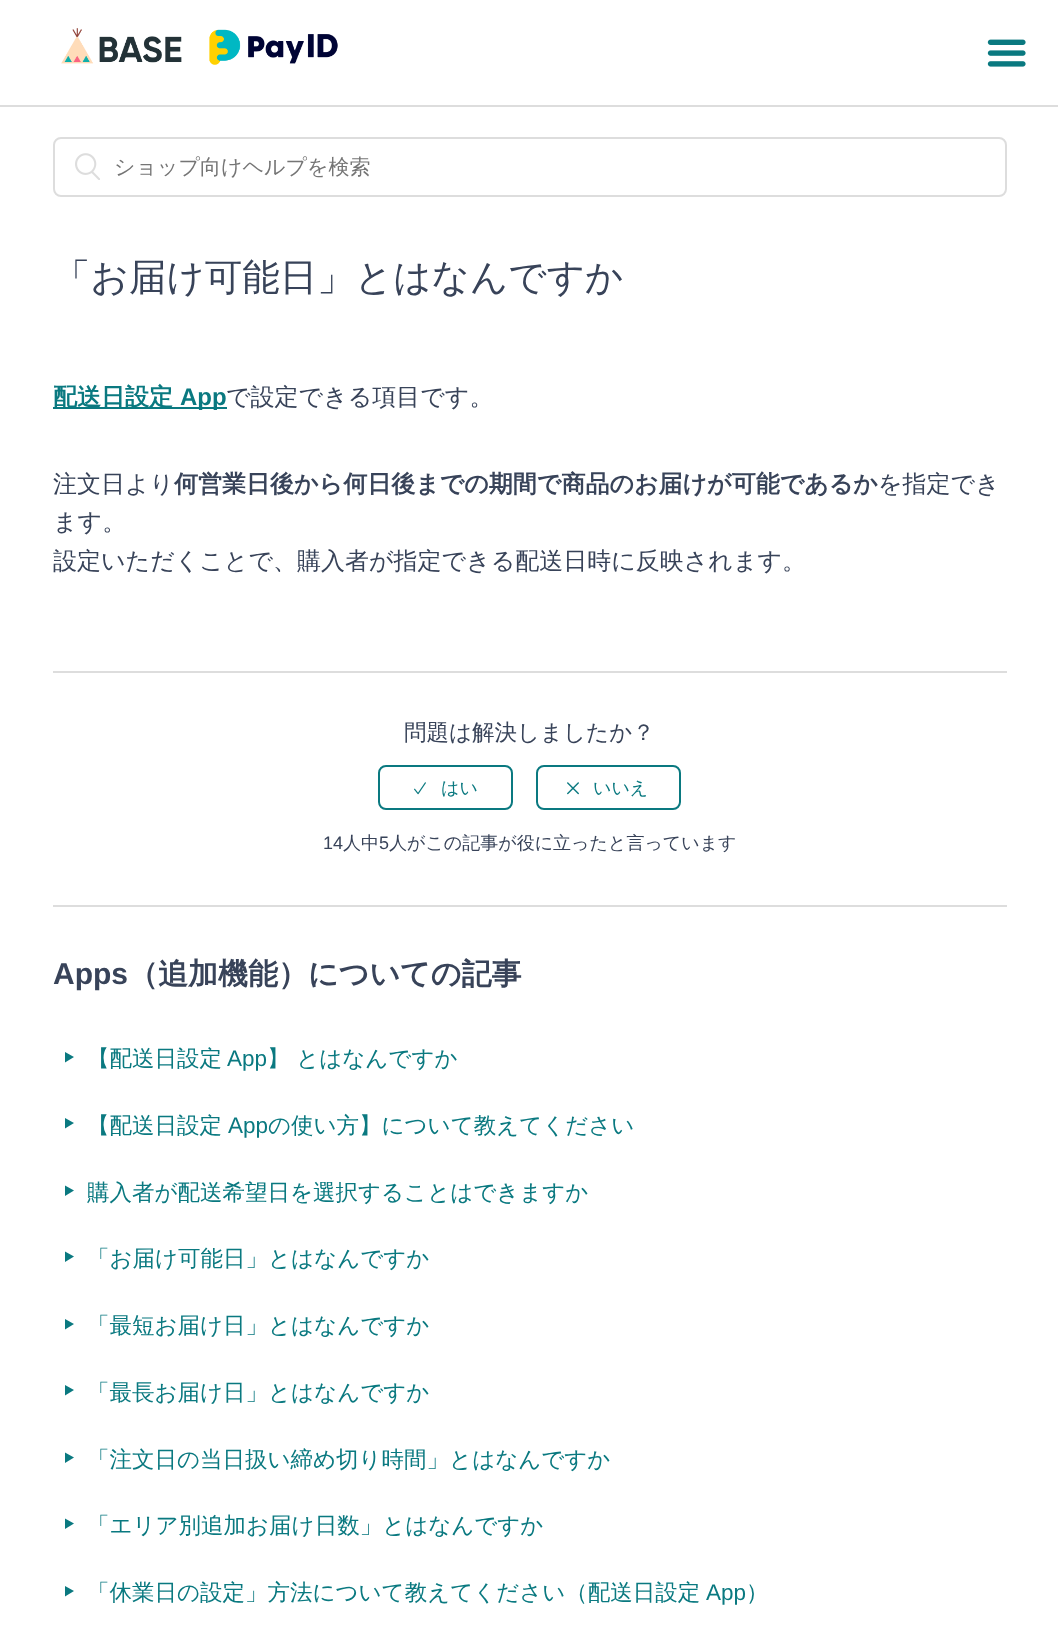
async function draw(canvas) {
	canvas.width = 1058;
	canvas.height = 1651;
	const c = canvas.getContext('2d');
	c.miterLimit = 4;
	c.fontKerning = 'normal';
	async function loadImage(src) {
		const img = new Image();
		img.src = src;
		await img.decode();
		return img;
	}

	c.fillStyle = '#fff';
	c.fillRect(0, 0, 1058, 1651);
	c.drawImage(await loadImage('img1.png'), 61, 28, 277, 37);
	c.drawImage(await loadImage('img2.png'), 987, 39, 39, 28);
	c.fillStyle = '#ddd';
	c.fillRect(0, 105, 1058, 2);
	c.beginPath();
	c.roundRect(54, 138, 952, 58, 7);
	c.strokeStyle = '#ddd';
	c.lineWidth = 2;
	c.stroke();
	c.drawImage(await loadImage('img3.png'), 75, 153, 25, 27);
	c.font = '500 21px WenQuanYi Zen Hei';
	c.fillStyle = '#757575';
	c.fillText('ショップ向けヘルプを検索', 114, 174);
	c.font = '500 37.5px WenQuanYi Zen Hei';
	c.fillStyle = '#384359';
	c.fillText('「お届け可能日」とはなんですか', 53, 290);
	c.fillStyle = '#0a7980';
	c.fillRect(53, 407, 174, 2);
	c.font = 'bold 24px WenQuanYi Zen Hei';
	c.fillText('配送日設定', 53, 405);
	c.font = 'bold 24px Liberation Sans';
	c.fillText('App', 180, 405);
	c.font = '500 24px WenQuanYi Zen Hei';
	c.fillStyle = '#384359';
	c.fillText('で設定できる項目です。', 226, 405);
	c.fillText('注文日より', 53, 492);
	c.font = 'bold 24px WenQuanYi Zen Hei';
	c.fillText('何営業日後から何日後までの期間で商品のお届けが可能であるか', 174, 492);
	c.font = '500 24px WenQuanYi Zen Hei';
	for (const [text, x, y] of [
		['を指定でき', 878, 492],
		['ます。', 53, 530],
		['設定いただくことで、購入者が指定できる配送日時に反映されます。', 53, 569],
	]) {
		c.fillText(text, x, y);
	}
	c.fillStyle = '#ddd';
	c.fillRect(53, 671, 954, 2);
	c.fillRect(53, 905, 954, 2);
	c.font = '500 22.5px WenQuanYi Zen Hei';
	c.fillStyle = '#384359';
	c.fillText('問題は解決しましたか？', 404, 740);
	c.beginPath();
	c.roundRect(379, 766, 133, 43, 7);
	c.strokeStyle = '#0a7980';
	c.stroke();
	c.drawImage(await loadImage('img4.png'), 414, 782, 12, 13);
	c.font = '500 18px WenQuanYi Zen Hei';
	c.fillStyle = '#0a7980';
	c.fillText('はい', 441, 794);
	c.beginPath();
	c.roundRect(537, 766, 143, 43, 7);
	c.stroke();
	c.drawImage(await loadImage('img5.png'), 567, 782, 12, 13);
	c.fillText('いいえ', 593, 794);
	c.font = '18px Liberation Sans';
	c.fillStyle = '#384359';
	c.fillText('14', 323, 849);
	c.font = '500 18px WenQuanYi Zen Hei';
	c.fillText('人中', 343, 849);
	c.font = '18px Liberation Sans';
	c.fillText('5', 379, 849);
	c.font = '500 18px WenQuanYi Zen Hei';
	c.fillText('人がこの記事が役に立ったと言っています', 389, 849);
	c.font = 'bold 30px Liberation Sans';
	c.fillText('Apps', 53, 984);
	c.font = 'bold 30px WenQuanYi Zen Hei';
	c.fillText('（追加機能）についての記事', 128, 984);
	c.fillStyle = '#0a7980';
	c.beginPath();
	c.moveTo(65, 1052);
	c.lineTo(74, 1057);
	c.lineTo(65, 1062.5);
	c.closePath();
	c.fill();
	c.font = '500 22.5px WenQuanYi Zen Hei';
	c.fillText('【配送日設定', 87, 1066);
	c.font = '22.5px Liberation Sans';
	c.fillText('App', 227, 1066);
	c.font = '500 22.5px WenQuanYi Zen Hei';
	c.fillText('】 とはなんですか', 267, 1066);
	c.beginPath();
	c.moveTo(65, 1118);
	c.lineTo(74, 1123);
	c.lineTo(65, 1128.5);
	c.closePath();
	c.fill();
	c.fillText('【配送日設定', 87, 1133);
	c.font = '22.5px Liberation Sans';
	c.fillText('App', 228, 1133);
	c.font = '500 22.5px WenQuanYi Zen Hei';
	c.fillText('の使い方】について教えてください', 268, 1133);
	c.beginPath();
	c.moveTo(65, 1185.5);
	c.lineTo(74, 1190.5);
	c.lineTo(65, 1196);
	c.closePath();
	c.fill();
	c.fillText('購入者が配送希望日を選択することはできますか', 87, 1200);
	c.beginPath();
	c.moveTo(65, 1251.5);
	c.lineTo(74, 1256.5);
	c.lineTo(65, 1262);
	c.closePath();
	c.fill();
	c.fillText('「お届け可能日」とはなんですか', 87, 1266);
	c.beginPath();
	c.moveTo(65, 1319);
	c.lineTo(74, 1324);
	c.lineTo(65, 1329.5);
	c.closePath();
	c.fill();
	c.fillText('「最短お届け日」とはなんですか', 87, 1333);
	c.beginPath();
	c.moveTo(65, 1385);
	c.lineTo(74, 1390);
	c.lineTo(65, 1395.5);
	c.closePath();
	c.fill();
	c.fillText('「最長お届け日」とはなんですか', 87, 1400);
	c.beginPath();
	c.moveTo(65, 1452.5);
	c.lineTo(74, 1457.5);
	c.lineTo(65, 1463);
	c.closePath();
	c.fill();
	c.fillText('「注文日の当日扱い締め切り時間」とはなんですか', 87, 1467);
	c.beginPath();
	c.moveTo(65, 1518.5);
	c.lineTo(74, 1523.5);
	c.lineTo(65, 1529);
	c.closePath();
	c.fill();
	c.fillText('「エリア別追加お届け日数」とはなんですか', 87, 1533);
	c.beginPath();
	c.moveTo(65, 1586);
	c.lineTo(74, 1591);
	c.lineTo(65, 1596.5);
	c.closePath();
	c.fill();
	c.fillText('「休業日の設定」方法について教えてください（配送日設定', 87, 1600);
	c.font = '22.5px Liberation Sans';
	c.fillText('App', 706, 1600);
	c.font = '500 22.5px WenQuanYi Zen Hei';
	c.fillText('）', 746, 1600);
}

draw(document.querySelector('canvas'));
